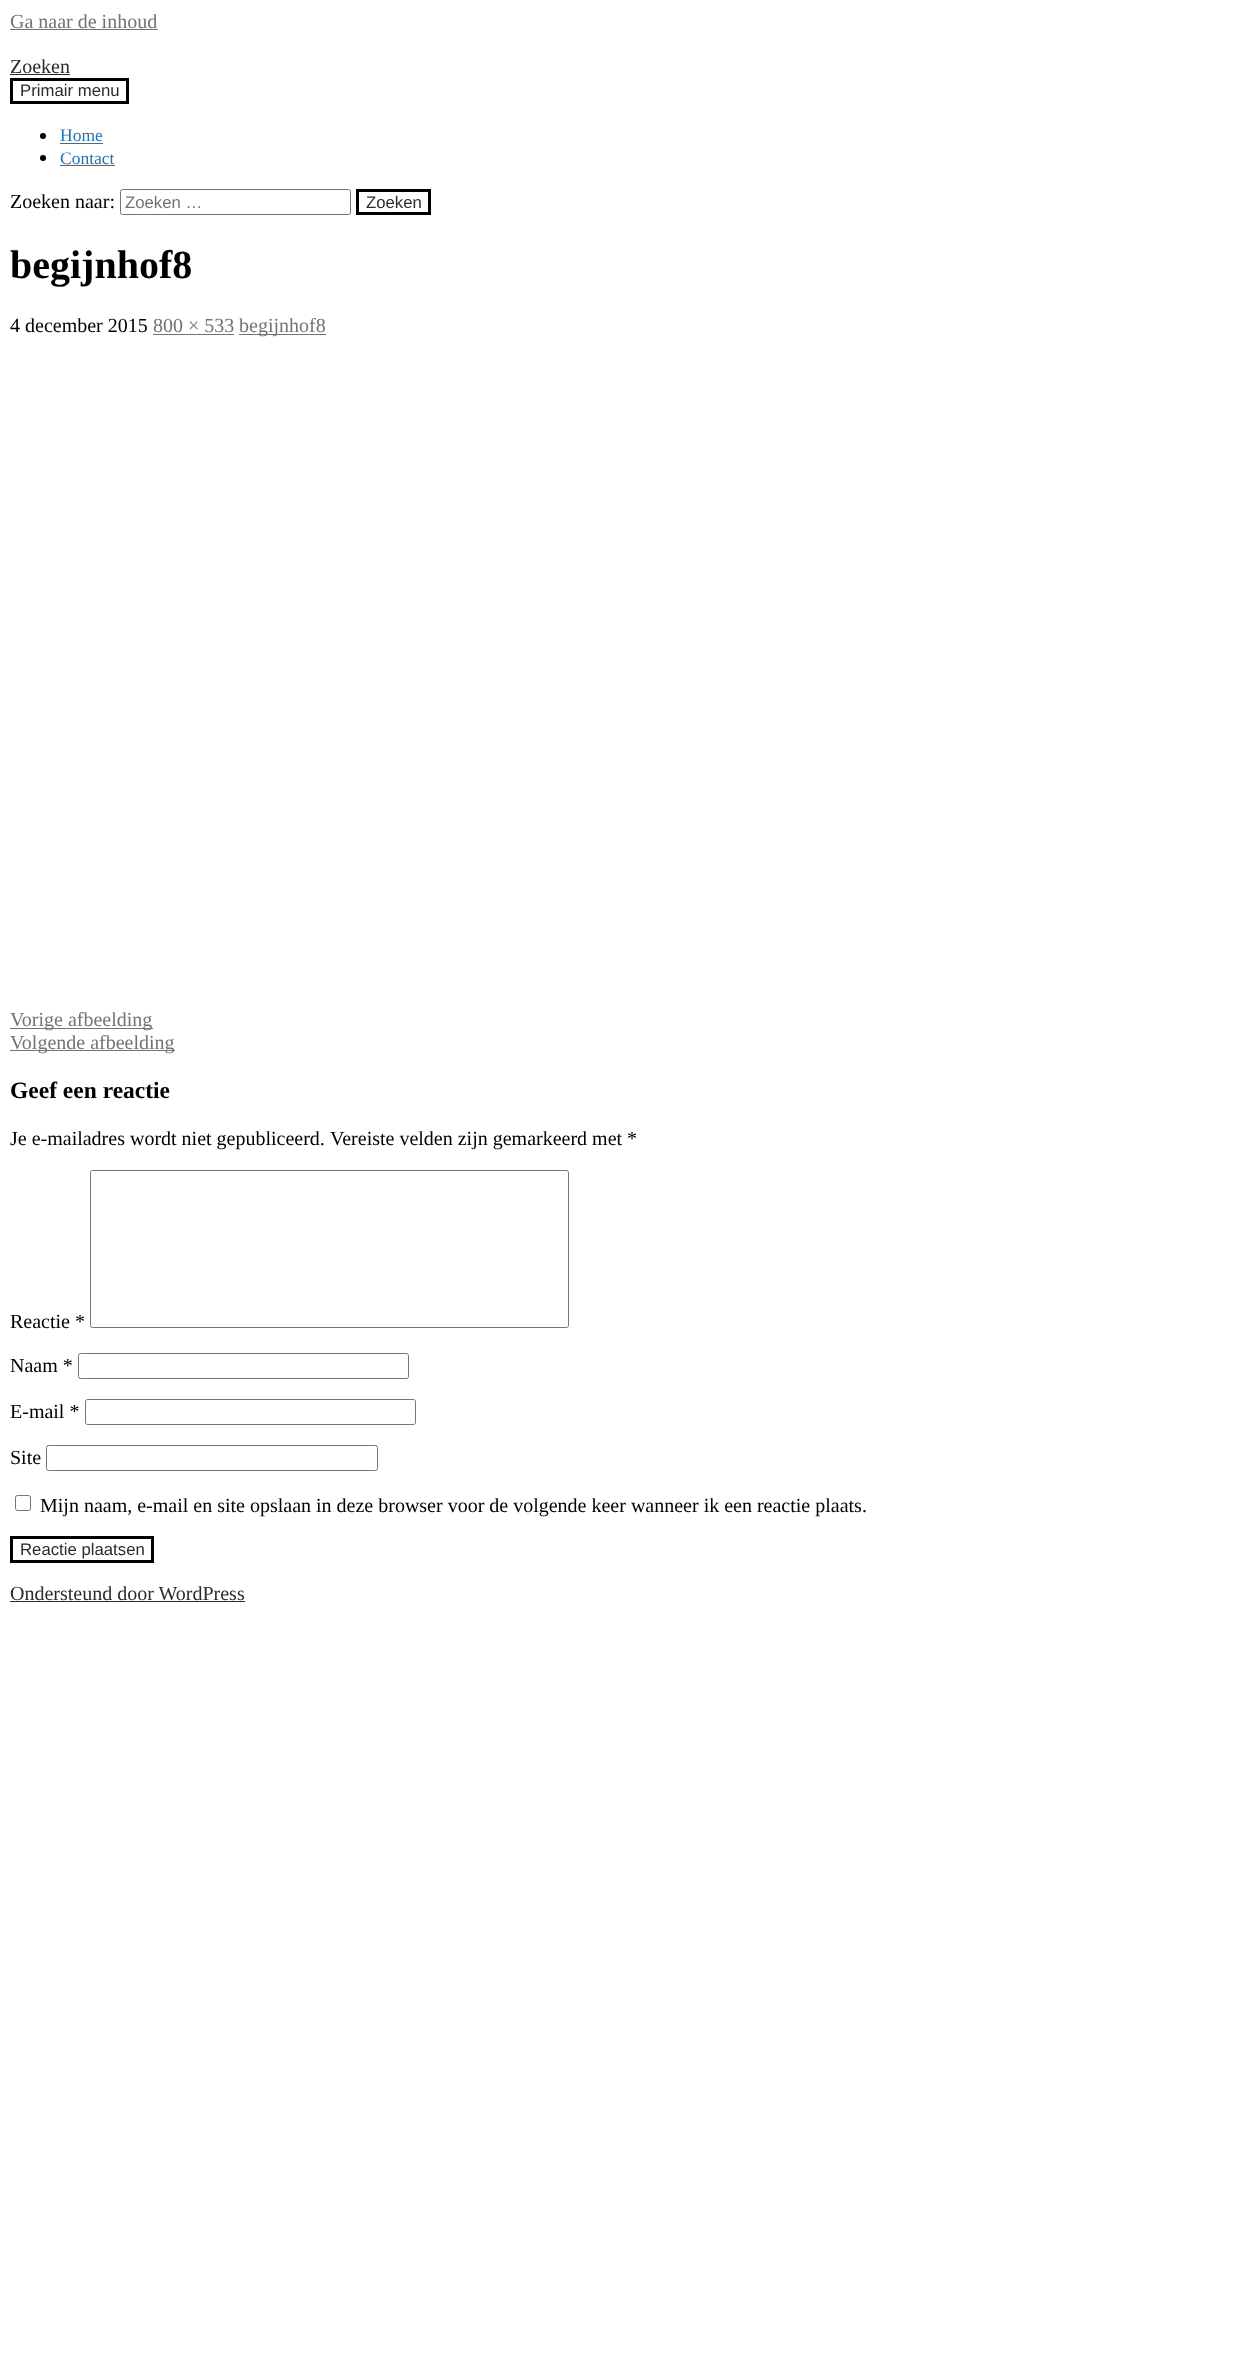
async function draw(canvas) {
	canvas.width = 1235;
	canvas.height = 2357;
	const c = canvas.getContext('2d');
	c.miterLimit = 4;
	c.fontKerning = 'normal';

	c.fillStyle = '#fff';
	c.fillRect(0, 0, 1235, 2357);
	c.font = '20px Liberation Serif';
	c.fillStyle = '#737373';
	c.fillText('Ga naar de inhoud', 10, 28);
	c.fillRect(10, 29, 148, 1);
	c.fillStyle = '#2b2b2b';
	c.fillText('Zoeken', 10, 73);
	c.fillRect(10, 74, 60, 1);
	c.strokeStyle = '#000';
	c.lineWidth = 3;
	c.strokeRect(11.5, 79.5, 116, 23);
	c.font = '16.75px Liberation Sans';
	c.fillText('Primair menu', 20, 96);
	c.fillStyle = '#000';
	c.beginPath();
	c.arc(43, 136, 3, 0, 2 * Math.PI);
	c.fill();
	c.font = '17.5px Liberation Serif';
	c.fillStyle = '#1e73be';
	c.fillText('Home', 60, 141);
	c.fillRect(60, 143, 43, 1);
	c.fillStyle = '#000';
	c.beginPath();
	c.arc(43, 158, 3, 0, 2 * Math.PI);
	c.fill();
	c.fillStyle = '#1e73be';
	c.fillText('Contact', 60, 164);
	c.fillRect(60, 165, 55, 1);
	c.font = '20px Liberation Serif';
	c.fillStyle = '#000';
	c.fillText('Zoeken naar:', 10, 208);
	c.beginPath();
	c.roundRect(120.5, 189.5, 230, 25, 2);
	c.strokeStyle = '#767676';
	c.lineWidth = 1;
	c.stroke();
	c.font = '16.75px Liberation Sans';
	c.fillStyle = '#737373';
	c.fillText('Zoeken …', 125, 208);
	c.strokeStyle = '#000';
	c.lineWidth = 3;
	c.strokeRect(357.5, 190.5, 72, 23);
	c.fillStyle = '#2b2b2b';
	c.fillText('Zoeken', 366, 208);
	c.font = 'bold 40px Liberation Serif';
	c.fillStyle = '#000';
	c.fillText('begijnhof8', 10, 278);
	c.font = '20px Liberation Serif';
	c.fillText('4 december 2015', 10, 332);
	c.fillStyle = '#737373';
	c.fillText('800 × 533', 153, 332);
	c.fillRect(153, 334, 81, 1);
	c.fillRect(239, 334, 87, 1);
	c.fillText('begijnhof8', 239, 332);
	c.fillRect(10, 1028, 143, 1);
	c.fillText('Vorige afbeelding', 10, 1026);
	c.fillRect(10, 1050, 165, 1);
	c.fillText('Volgende afbeelding', 10, 1049);
	c.font = 'bold 23.5px Liberation Serif';
	c.fillStyle = '#000';
	c.fillText('Geef een reactie', 10, 1098);
	c.font = '20px Liberation Serif';
	for (const [text, x, y] of [
		['Je e-mailadres wordt niet gepubliceerd.', 10, 1145],
		['Vereiste velden zijn gemarkeerd met *', 330, 1145],
		['Reactie *', 10, 1328],
	]) {
		c.fillText(text, x, y);
	}
	c.beginPath();
	c.roundRect(90.5, 1170.5, 478, 157, 2);
	c.strokeStyle = '#767676';
	c.lineWidth = 1;
	c.stroke();
	c.fillText('Naam *', 10, 1372);
	c.beginPath();
	c.roundRect(78.5, 1353.5, 330, 25, 2);
	c.stroke();
	c.fillText('E-mail *', 10, 1418);
	c.beginPath();
	c.roundRect(85.5, 1399.5, 330, 25, 2);
	c.stroke();
	c.fillText('Site', 10, 1464);
	c.beginPath();
	c.roundRect(46.5, 1445.5, 331, 25, 2);
	c.stroke();
	c.beginPath();
	c.roundRect(15.5, 1495.5, 15, 15, 2);
	c.stroke();
	c.fillText('Mijn naam, e-mail en site opslaan in deze browser voor de volgende keer wanneer ik een reactie plaats.', 40, 1512);
	c.strokeStyle = '#000';
	c.lineWidth = 3;
	c.strokeRect(11.5, 1537.5, 141, 24);
	c.font = '16.75px Liberation Sans';
	c.fillStyle = '#2b2b2b';
	c.fillText('Reactie plaatsen', 20, 1555);
	c.font = '20px Liberation Serif';
	c.fillText('Ondersteund door WordPress', 10, 1600);
	c.fillRect(10, 1601, 235, 1);
}

draw(document.querySelector('canvas'));
